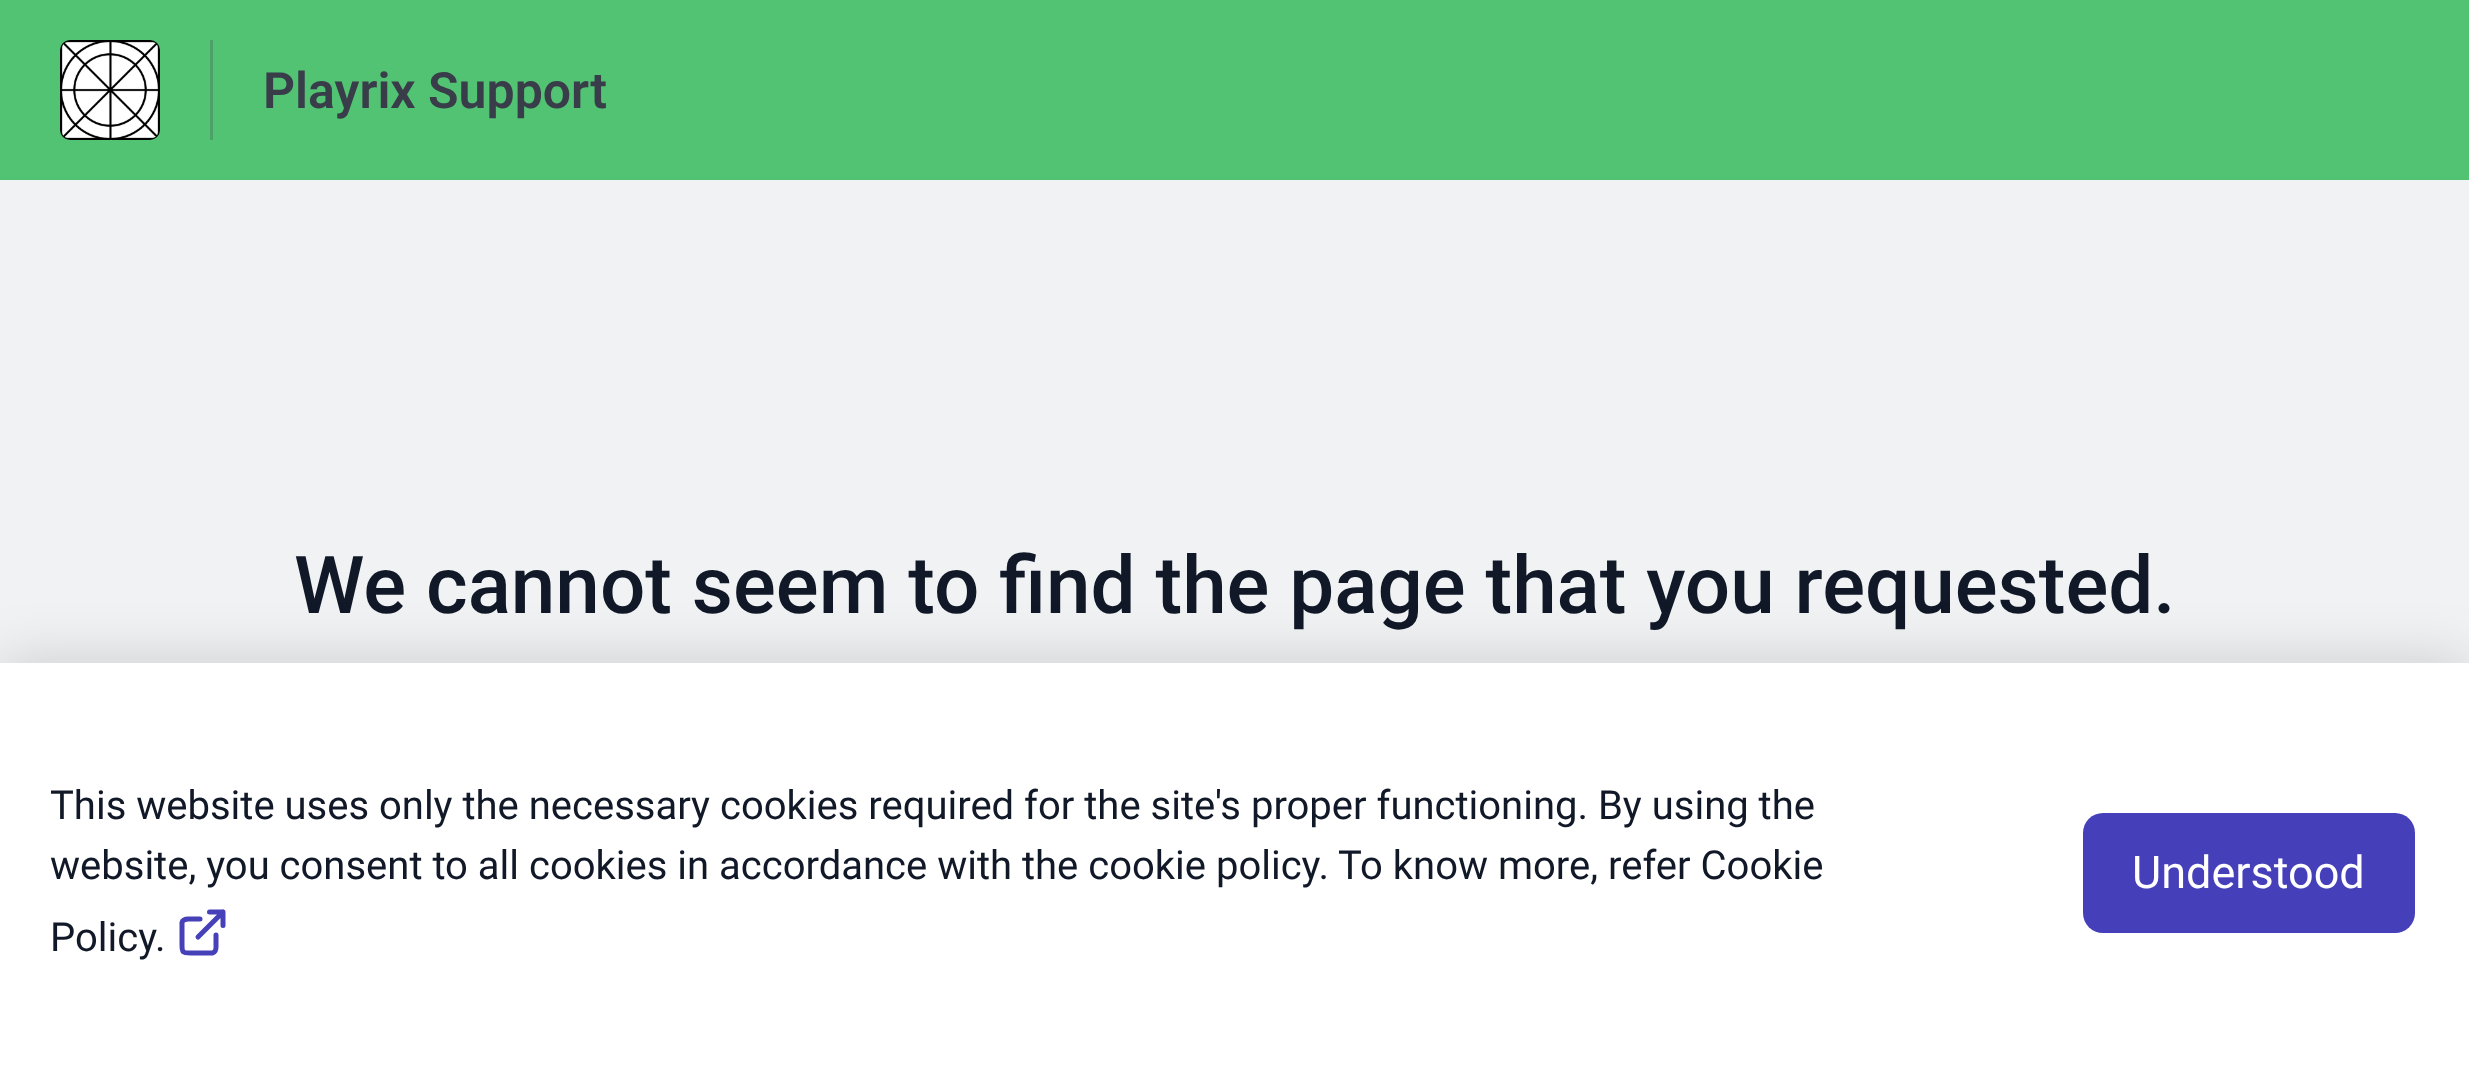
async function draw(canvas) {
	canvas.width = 2469;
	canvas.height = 1081;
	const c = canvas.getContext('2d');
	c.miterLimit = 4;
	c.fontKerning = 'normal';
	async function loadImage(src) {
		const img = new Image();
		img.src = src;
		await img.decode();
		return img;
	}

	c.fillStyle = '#f0f2f4';
	c.fillRect(0, 0, 2469, 1081);
	c.fillStyle = '#52c273';
	c.fillRect(0, 0, 2469, 180);
	c.fillStyle = '#4ca169';
	c.fillRect(210, 40, 3, 100);
	c.drawImage(await loadImage('img1.png'), 60, 40, 100, 100);
	c.font = '600 50px Roboto';
	c.fillStyle = '#393d49';
	c.fillText('Playrix Support', 263, 108);
	c.font = '500 80px Roboto';
	c.fillStyle = '#111827';
	c.fillText('We cannot seem to find the page that you requested.', 294, 613);
	c.fillStyle = '#00000029';
	c.filter = 'blur(30px)';
	c.beginPath();
	c.rect(0, 663, 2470, 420);
	c.fill();
	c.filter = 'none';
	c.fillStyle = '#fff';
	c.fillRect(0, 663, 2469, 418);
	c.font = '40px Roboto';
	c.fillStyle = '#111827';
	for (const [text, x, y] of [
		['This website uses only the necessary cookies required for the site\'s proper functioning. By using the', 50, 819],
		['website, you consent to all cookies in accordance with the cookie policy. To know more, refer Cookie', 50, 879],
		['Policy.', 50, 951],
	]) {
		c.fillText(text, x, y);
	}
	c.beginPath();
	c.moveTo(216, 935);
	c.lineTo(216, 944);
	c.bezierCurveTo(216, 947.5, 217, 952, 212.5, 953);
	c.lineTo(190.5, 953);
	c.bezierCurveTo(182.5, 953, 182, 952.5, 182, 944.5);
	c.lineTo(182, 922.5);
	c.bezierCurveTo(183, 918, 187.5, 919, 191, 919);
	c.lineTo(200, 919);
	c.moveTo(209.5, 912);
	c.lineTo(223, 912);
	c.lineTo(223, 925.5);
	c.moveTo(198, 937);
	c.lineTo(223, 912);
	c.strokeStyle = '#4640b9';
	c.lineWidth = 5;
	c.lineCap = 'round';
	c.lineJoin = 'round';
	c.stroke();
	c.fillStyle = '#453fb9';
	c.beginPath();
	c.roundRect(2083, 813, 332, 120, 20);
	c.fill();
	c.font = '45px Roboto';
	c.fillStyle = '#fff';
	c.fillText('Understood', 2132, 888);
}

draw(document.querySelector('canvas'));
